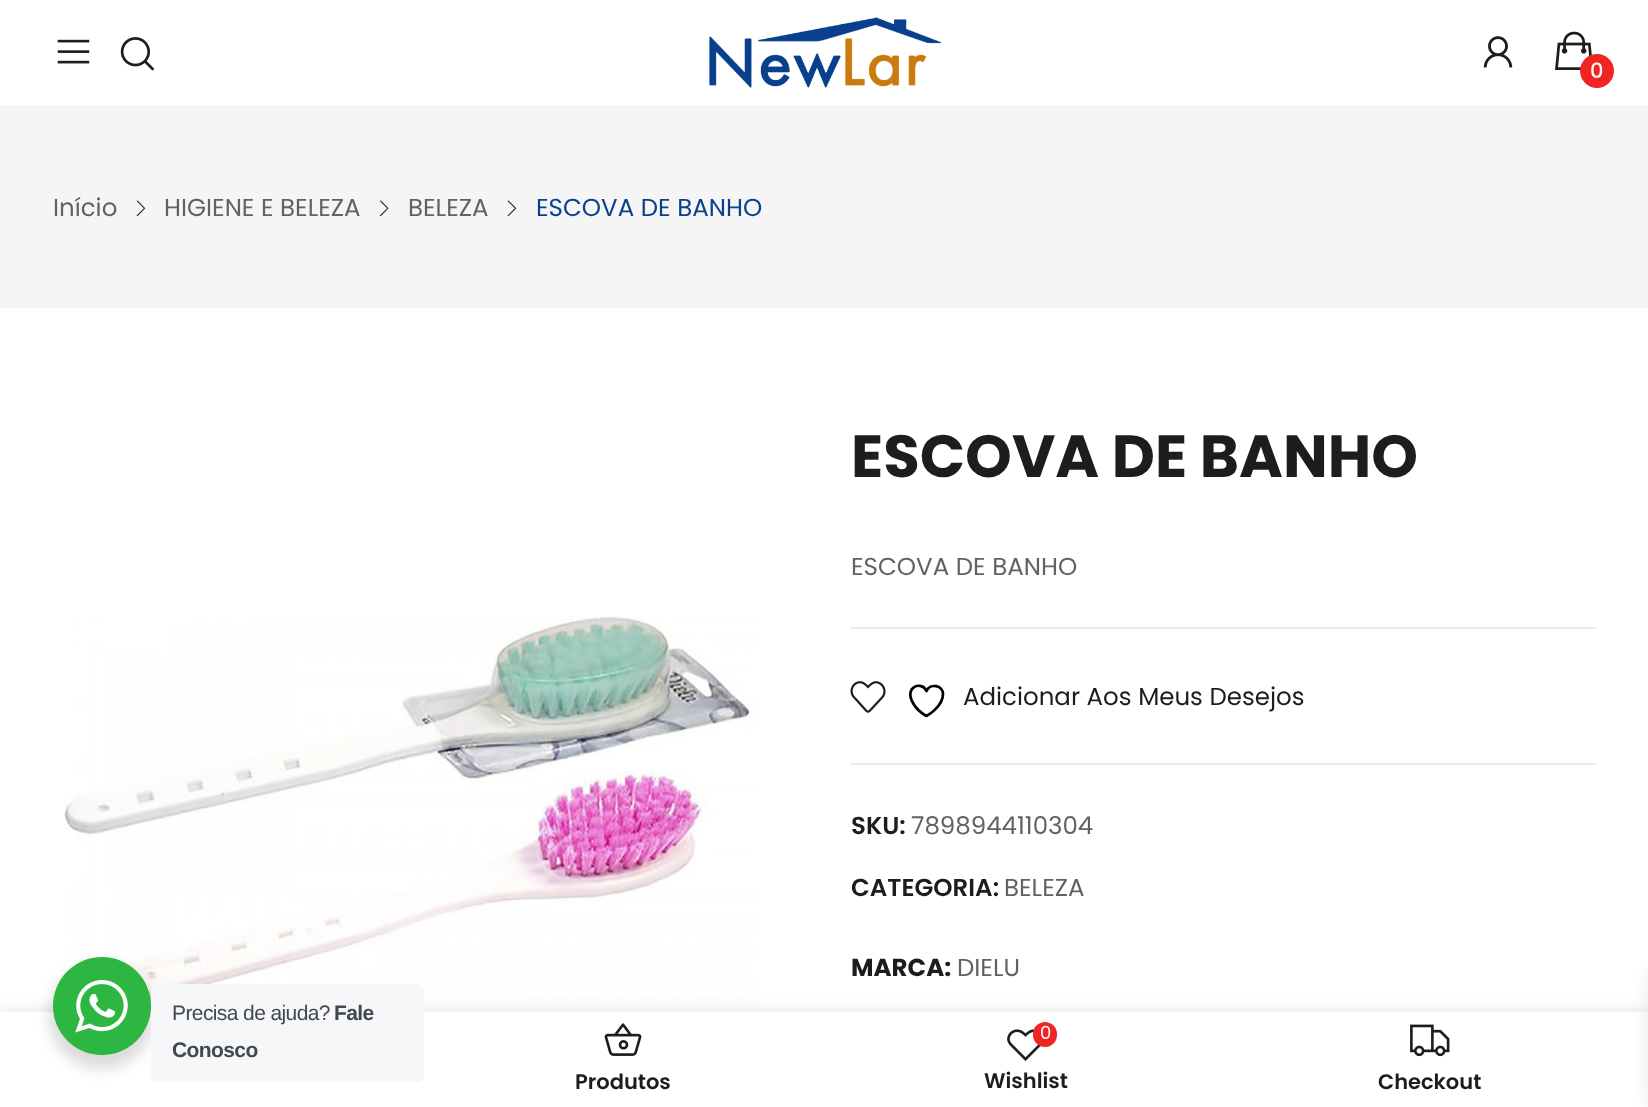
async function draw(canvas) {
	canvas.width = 1648;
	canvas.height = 1107;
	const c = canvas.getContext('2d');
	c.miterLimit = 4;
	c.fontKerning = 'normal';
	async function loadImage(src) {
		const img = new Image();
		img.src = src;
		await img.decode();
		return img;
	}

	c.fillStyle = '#fff';
	c.fillRect(0, 0, 1648, 1107);
	c.fillStyle = '#f5f5f5';
	c.fillRect(0, 105, 1648, 203);
	c.drawImage(await loadImage('img1.png'), 57, 39, 33, 25);
	c.drawImage(await loadImage('img2.png'), 120, 37, 34, 34);
	c.drawImage(await loadImage('img3.png'), 709, 17, 232, 71);
	c.drawImage(await loadImage('img4.png'), 1483, 36, 30, 32);
	c.drawImage(await loadImage('img5.png'), 1555, 31, 37, 39);
	c.fillStyle = '#f12424';
	c.beginPath();
	c.arc(1597, 71, 17, 0, 2 * Math.PI);
	c.fill();
	c.font = '500 21px Poppins';
	c.fillStyle = '#fff';
	c.fillText('0', 1590, 78);
	c.drawImage(await loadImage('img11.png'), 64, 616, 692, 391);
	c.fillStyle = '#0000001f';
	c.filter = 'blur(8px)';
	c.beginPath();
	c.rect(0, 1012, 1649, 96);
	c.fill();
	c.filter = 'none';
	c.fillStyle = '#fff';
	c.fillRect(0, 1012, 1648, 95);
	c.drawImage(await loadImage('img6.png'), 604, 1023, 38, 33);
	c.font = '600 21px Poppins';
	c.fillStyle = '#1d1d1d';
	c.fillText('Produtos', 575, 1089);
	c.drawImage(await loadImage('img7.png'), 1007, 1029, 34, 32);
	c.fillStyle = '#f12424';
	c.beginPath();
	c.roundRect(1033, 1022, 24, 25, 12);
	c.fill();
	c.font = '18px Poppins';
	c.fillStyle = '#fff';
	c.fillText('0', 1040, 1039);
	c.font = '600 21px Poppins';
	c.fillStyle = '#1d1d1d';
	c.fillText('Wishlist', 984, 1088);
	c.drawImage(await loadImage('img8.png'), 1410, 1024, 40, 33);
	c.fillText('Checkout', 1378, 1089);
	c.font = '24.5px Poppins';
	c.fillStyle = '#626262';
	c.fillText('Início', 53, 216);
	c.drawImage(await loadImage('img9.png'), 136, 200, 9, 17);
	c.fillText('HIGIENE E BELEZA', 164, 216);
	c.drawImage(await loadImage('img10.png'), 379, 200, 10, 17);
	c.fillText('BELEZA', 408, 216);
	c.drawImage(await loadImage('img9.png'), 507, 200, 9, 17);
	c.fillStyle = '#09418d';
	c.fillText('ESCOVA DE BANHO', 536, 216);
	c.font = 'bold 59.5px Poppins';
	c.fillStyle = '#1d1d1d';
	c.fillText('ESCOVA DE BANHO', 851, 477);
	c.fillStyle = '#ebebeb';
	c.fillRect(851, 627, 745, 2);
	c.font = '24.5px Poppins';
	c.fillStyle = '#626262';
	c.fillText('ESCOVA DE BANHO', 851, 575);
	c.drawImage(await loadImage('img12.png'), 850, 681, 36, 32);
	c.beginPath();
	c.moveTo(943, 694);
	c.bezierCurveTo(943, 685, 930, 683, 926.5, 691);
	c.bezierCurveTo(922, 680.5, 903.5, 686.5, 913, 703);
	c.bezierCurveTo(916, 708.5, 921, 713, 926.5, 716);
	c.bezierCurveTo(926.5, 716, 943, 707, 943, 694);
	c.closePath();
	c.strokeStyle = '#000';
	c.lineWidth = 2.7;
	c.lineCap = 'round';
	c.lineJoin = 'round';
	c.stroke();
	c.fillStyle = '#1d1d1d';
	c.fillText('Adicionar Aos Meus Desejos', 963, 705);
	c.fillStyle = '#ebebeb';
	c.fillRect(851, 763, 745, 2);
	c.font = '600 24.5px Poppins';
	c.fillStyle = '#1d1d1d';
	c.fillText('SKU:', 851, 834);
	c.font = '24.5px Poppins';
	c.fillStyle = '#626262';
	c.fillText('7898944110304', 911, 834);
	c.font = '600 24.5px Poppins';
	c.fillStyle = '#1d1d1d';
	c.fillText('CATEGORIA:', 851, 896);
	c.font = '24.5px Poppins';
	c.fillStyle = '#626262';
	c.fillText('BELEZA', 1004, 896);
	c.font = 'bold 24.5px Poppins';
	c.fillStyle = '#1d1d1d';
	c.fillText('MARCA:', 851, 976);
	c.font = '24.5px Poppins';
	c.fillStyle = '#626262';
	c.fillText('DIELU', 957, 976);
	c.fillStyle = '#0000001a';
	c.filter = 'blur(9px)';
	c.beginPath();
	c.rect(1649, 975, 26, 131);
	c.fill();
	c.filter = 'none';
	c.fillStyle = '#00000024';
	c.filter = 'blur(7px)';
	c.beginPath();
	c.roundRect(49, 964, 105, 105, 52.5);
	c.fill();
	c.filter = 'none';
	c.fillStyle = '#2db742';
	c.beginPath();
	c.arc(102, 1006, 49, 0, 2 * Math.PI);
	c.fill();
	c.drawImage(await loadImage('img13.png'), 75, 980, 53, 53);
	c.fillStyle = '#f5f7f9';
	c.beginPath();
	c.roundRect(151, 984, 273, 98, 7);
	c.fill();
	c.letterSpacing = '-0.6px';
	c.font = '21px Liberation Sans';
	c.fillStyle = '#43474e';
	c.fillText('Precisa de ajuda?', 172, 1020);
	c.font = 'bold 21px Liberation Sans';
	c.fillText('Fale', 334, 1020);
	c.fillText('Conosco', 172, 1057);
}

draw(document.querySelector('canvas'));
